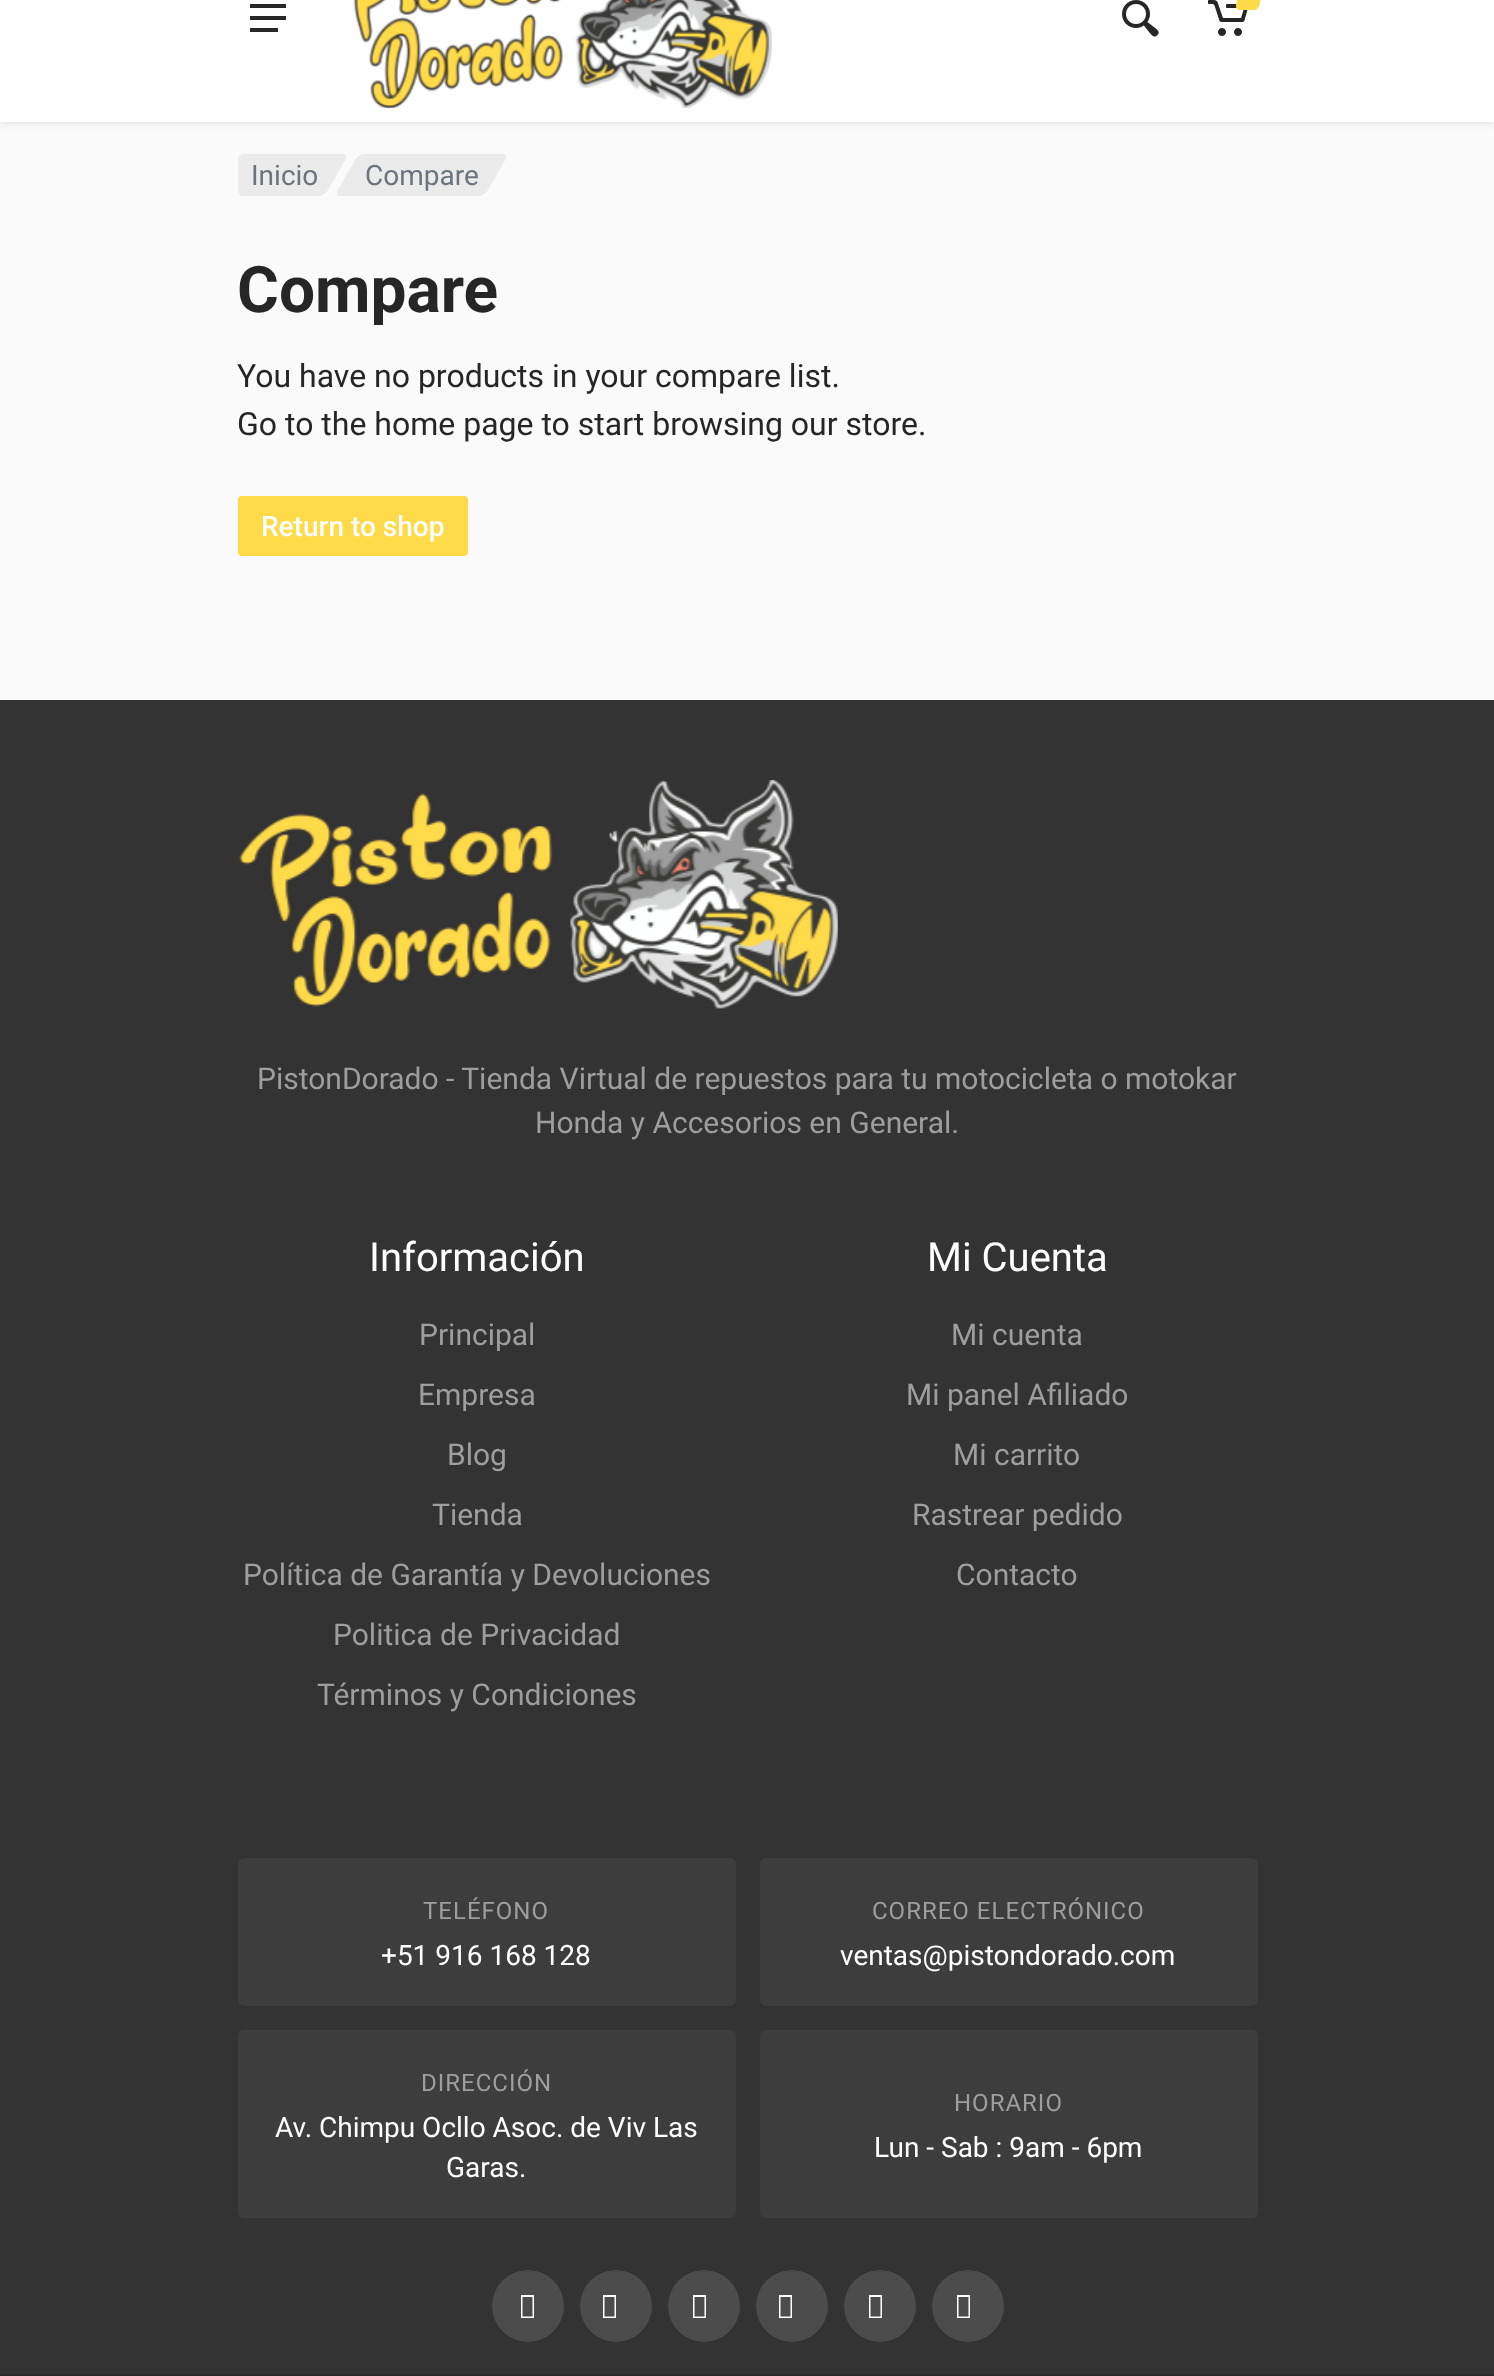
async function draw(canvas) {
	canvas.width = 1494;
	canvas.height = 2376;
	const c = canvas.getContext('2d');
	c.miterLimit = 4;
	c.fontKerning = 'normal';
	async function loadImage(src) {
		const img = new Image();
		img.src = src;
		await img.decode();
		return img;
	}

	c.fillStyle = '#fafafa';
	c.fillRect(0, 0, 1494, 2376);
	c.fillStyle = '#00000017';
	c.filter = 'blur(3px)';
	c.beginPath();
	c.rect(0, -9, 1494, 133);
	c.fill();
	c.filter = 'none';
	c.fillStyle = '#fff';
	c.fillRect(0, 0, 1494, 122);
	c.fillStyle = '#262626';
	c.beginPath();
	c.moveTo(250, 20);
	c.lineTo(250, 16);
	c.lineTo(286, 16);
	c.lineTo(286, 20);
	c.closePath();
	c.moveTo(250, 4);
	c.lineTo(286, 4);
	c.lineTo(286, 8);
	c.lineTo(250, 8);
	c.closePath();
	c.moveTo(278, 32);
	c.lineTo(250, 32);
	c.lineTo(250, 28);
	c.lineTo(278, 28);
	c.closePath();
	c.fill();
	c.drawImage(await loadImage('img1.png'), 353, 0, 419, 108);
	c.drawImage(await loadImage('img2.png'), 1122, 0, 37, 37);
	c.drawImage(await loadImage('img3.png'), 1208, 0, 40, 36);
	c.fillStyle = '#ffda49';
	c.beginPath();
	c.moveTo(1245.5, -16);
	c.lineTo(1258.5, -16);
	c.bezierCurveTo(1261.5, -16, 1263, -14, 1262.5, -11);
	c.lineTo(1259.5, 5);
	c.bezierCurveTo(1259, 8, 1256, 10, 1253.5, 10);
	c.lineTo(1240, 10);
	c.bezierCurveTo(1237.5, 10, 1235.5, 8, 1236, 5);
	c.lineTo(1239.5, -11);
	c.bezierCurveTo(1240, -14, 1242.5, -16, 1245.5, -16);
	c.closePath();
	c.fill();
	c.fillStyle = '#ebebeb';
	c.beginPath();
	c.moveTo(267, 154);
	c.lineTo(343, 154);
	c.bezierCurveTo(346, 154, 347, 157, 345, 160);
	c.lineTo(328, 190);
	c.bezierCurveTo(326, 193, 322, 196, 318, 196);
	c.lineTo(243, 196);
	c.bezierCurveTo(240, 196, 239, 193, 240, 190);
	c.lineTo(258, 160);
	c.bezierCurveTo(260, 157, 264, 154, 267, 154);
	c.closePath();
	c.fill();
	c.beginPath();
	c.roundRect(238, 154, 70, 42, 6);
	c.fill();
	c.font = '28px Roboto';
	c.fillStyle = '#6c757d';
	c.fillText('Inicio', 251, 185);
	c.fillStyle = '#ebebeb';
	c.beginPath();
	c.moveTo(365, 154);
	c.lineTo(503, 154);
	c.bezierCurveTo(506, 154, 507, 157, 505, 160);
	c.lineTo(488, 190);
	c.bezierCurveTo(486, 193, 482, 196, 478, 196);
	c.lineTo(340, 196);
	c.bezierCurveTo(337, 196, 336, 193, 338, 190);
	c.lineTo(355, 160);
	c.bezierCurveTo(357, 157, 361, 154, 365, 154);
	c.closePath();
	c.fill();
	c.fillStyle = '#6c757d';
	c.fillText('Compare', 365, 185);
	c.font = 'bold 64px Roboto';
	c.fillStyle = '#262626';
	c.fillText('Compare', 237, 312);
	c.font = '32px Roboto';
	c.fillText('You have no products in your compare list.', 237, 387);
	c.fillText('Go to the home page to start browsing our store.', 237, 435);
	c.fillStyle = '#ffda49';
	c.beginPath();
	c.roundRect(238, 496, 230, 60, 4);
	c.fill();
	c.font = '500 28px Roboto';
	c.fillStyle = '#fff';
	c.fillText('Return to shop', 261, 536);
	c.fillStyle = '#333';
	c.fillRect(0, 700, 1494, 1674);
	c.drawImage(await loadImage('img4.png'), 239, 780, 599, 229);
	c.font = '30px Roboto';
	c.fillStyle = '#9e9e9e';
	c.fillText('PistonDorado - Tienda Virtual de repuestos para tu motocicleta o motokar', 257, 1089);
	c.fillText('Honda y Accesorios en General.', 535, 1133);
	c.font = '40px Roboto';
	c.fillStyle = '#fff';
	c.fillText('Información', 369, 1271);
	c.font = '30px Roboto';
	c.fillStyle = '#9e9e9e';
	for (const [text, x, y] of [
		['Principal', 419, 1345],
		['Empresa', 418, 1405],
		['Blog', 447, 1465],
		['Tienda', 432, 1525],
		['Política de Garantía y Devoluciones', 243, 1585],
		['Politica de Privacidad', 333, 1645],
		['Términos y Condiciones', 317, 1705],
	]) {
		c.fillText(text, x, y);
	}
	c.font = '40px Roboto';
	c.fillStyle = '#fff';
	c.fillText('Mi Cuenta', 927, 1271);
	c.font = '30px Roboto';
	c.fillStyle = '#9e9e9e';
	for (const [text, x, y] of [
		['Mi cuenta', 951, 1345],
		['Mi panel Afiliado', 906, 1405],
		['Mi carrito', 953, 1465],
		['Rastrear pedido', 912, 1525],
		['Contacto', 956, 1585],
	]) {
		c.fillText(text, x, y);
	}
	c.fillStyle = '#3d3d3d';
	c.beginPath();
	c.roundRect(238, 1858, 498, 148, 6);
	c.fill();
	c.letterSpacing = '1px';
	c.font = '24px Roboto';
	c.fillStyle = '#9e9e9e';
	c.fillText('TELÉFONO', 423, 1919);
	c.letterSpacing = '0px';
	c.font = '28px Roboto';
	c.fillStyle = '#fff';
	c.fillText('+51 916 168 128', 381, 1965);
	c.fillStyle = '#3d3d3d';
	c.beginPath();
	c.roundRect(760, 1858, 498, 148, 6);
	c.fill();
	c.letterSpacing = '1px';
	c.font = '24px Roboto';
	c.fillStyle = '#9e9e9e';
	c.fillText('CORREO ELECTRÓNICO', 872, 1919);
	c.letterSpacing = '0px';
	c.font = '28px Roboto';
	c.fillStyle = '#fff';
	c.fillText('ventas@pistondorado.com', 840, 1965);
	c.fillStyle = '#3d3d3d';
	c.beginPath();
	c.roundRect(238, 2030, 498, 188, 6);
	c.fill();
	c.letterSpacing = '1px';
	c.font = '24px Roboto';
	c.fillStyle = '#9e9e9e';
	c.fillText('DIRECCIÓN', 421, 2091);
	c.letterSpacing = '0px';
	c.font = '28px Roboto';
	c.fillStyle = '#fff';
	c.fillText('Av. Chimpu Ocllo Asoc. de Viv Las', 275, 2137);
	c.fillText('Garas.', 446, 2177);
	c.fillStyle = '#3d3d3d';
	c.beginPath();
	c.roundRect(760, 2030, 498, 188, 6);
	c.fill();
	c.letterSpacing = '1px';
	c.font = '24px Roboto';
	c.fillStyle = '#9e9e9e';
	c.fillText('HORARIO', 954, 2111);
	c.letterSpacing = '0px';
	c.font = '28px Roboto';
	c.fillStyle = '#fff';
	c.fillText('Lun - Sab : 9am - 6pm', 874, 2157);
	c.fillStyle = '#4c4c4c';
	c.beginPath();
	c.arc(528, 2306, 36, 0, 2 * Math.PI);
	c.fill();
	c.fillStyle = '#fff';
	c.beginPath();
	c.moveTo(521, 2318);
	c.lineTo(521, 2295);
	c.lineTo(534, 2295);
	c.lineTo(534, 2318);
	c.closePath();
	c.moveTo(522.5, 2316.5);
	c.lineTo(532.5, 2316.5);
	c.lineTo(532.5, 2297);
	c.lineTo(522.5, 2297);
	c.closePath();
	c.fill();
	c.fillStyle = '#4c4c4c';
	c.beginPath();
	c.arc(616, 2306, 36, 0, 2 * Math.PI);
	c.fill();
	c.fillStyle = '#fff';
	c.beginPath();
	c.moveTo(603, 2318);
	c.lineTo(603, 2295);
	c.lineTo(616, 2295);
	c.lineTo(616, 2318);
	c.closePath();
	c.moveTo(604.5, 2316.5);
	c.lineTo(614.5, 2316.5);
	c.lineTo(614.5, 2297);
	c.lineTo(604.5, 2297);
	c.closePath();
	c.fill();
	c.fillStyle = '#4c4c4c';
	c.beginPath();
	c.arc(704, 2306, 36, 0, 2 * Math.PI);
	c.fill();
	c.fillStyle = '#fff';
	c.beginPath();
	c.moveTo(693, 2318);
	c.lineTo(693, 2295);
	c.lineTo(706, 2295);
	c.lineTo(706, 2318);
	c.closePath();
	c.moveTo(694.5, 2316.5);
	c.lineTo(704.5, 2316.5);
	c.lineTo(704.5, 2297);
	c.lineTo(694.5, 2297);
	c.closePath();
	c.fill();
	c.fillStyle = '#4c4c4c';
	c.beginPath();
	c.arc(792, 2306, 36, 0, 2 * Math.PI);
	c.fill();
	c.fillStyle = '#fff';
	c.beginPath();
	c.moveTo(779, 2318);
	c.lineTo(779, 2295);
	c.lineTo(792, 2295);
	c.lineTo(792, 2318);
	c.closePath();
	c.moveTo(780.5, 2316.5);
	c.lineTo(790.5, 2316.5);
	c.lineTo(790.5, 2297);
	c.lineTo(780.5, 2297);
	c.closePath();
	c.fill();
	c.fillStyle = '#4c4c4c';
	c.beginPath();
	c.arc(880, 2306, 36, 0, 2 * Math.PI);
	c.fill();
	c.fillStyle = '#fff';
	c.beginPath();
	c.moveTo(869, 2318);
	c.lineTo(869, 2295);
	c.lineTo(882, 2295);
	c.lineTo(882, 2318);
	c.closePath();
	c.moveTo(870.5, 2316.5);
	c.lineTo(880.5, 2316.5);
	c.lineTo(880.5, 2297);
	c.lineTo(870.5, 2297);
	c.closePath();
	c.fill();
	c.fillStyle = '#4c4c4c';
	c.beginPath();
	c.arc(968, 2306, 36, 0, 2 * Math.PI);
	c.fill();
	c.fillStyle = '#fff';
	c.beginPath();
	c.moveTo(957, 2318);
	c.lineTo(957, 2295);
	c.lineTo(970, 2295);
	c.lineTo(970, 2318);
	c.closePath();
	c.moveTo(958.5, 2316.5);
	c.lineTo(968.5, 2316.5);
	c.lineTo(968.5, 2297);
	c.lineTo(958.5, 2297);
	c.closePath();
	c.fill();
	c.fillStyle = '#2b2b2b';
	c.fillRect(0, 2374, 1494, 2);
}

draw(document.querySelector('canvas'));
